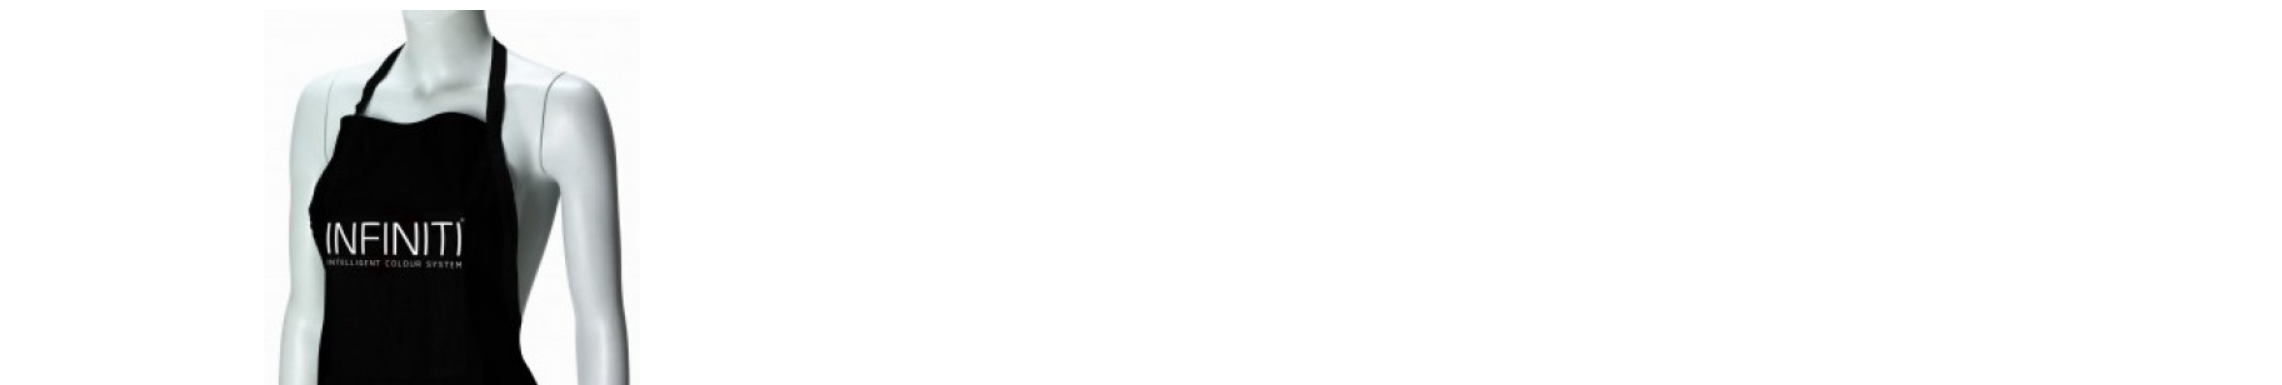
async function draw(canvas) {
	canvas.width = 2282;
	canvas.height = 385;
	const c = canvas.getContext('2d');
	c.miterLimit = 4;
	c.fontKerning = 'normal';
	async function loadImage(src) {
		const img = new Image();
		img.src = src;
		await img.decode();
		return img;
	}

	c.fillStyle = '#fff';
	c.fillRect(0, 0, 2282, 385);
	c.drawImage(await loadImage('img1.png'), 264, 10, 376, 375);
}

draw(document.querySelector('canvas'));
